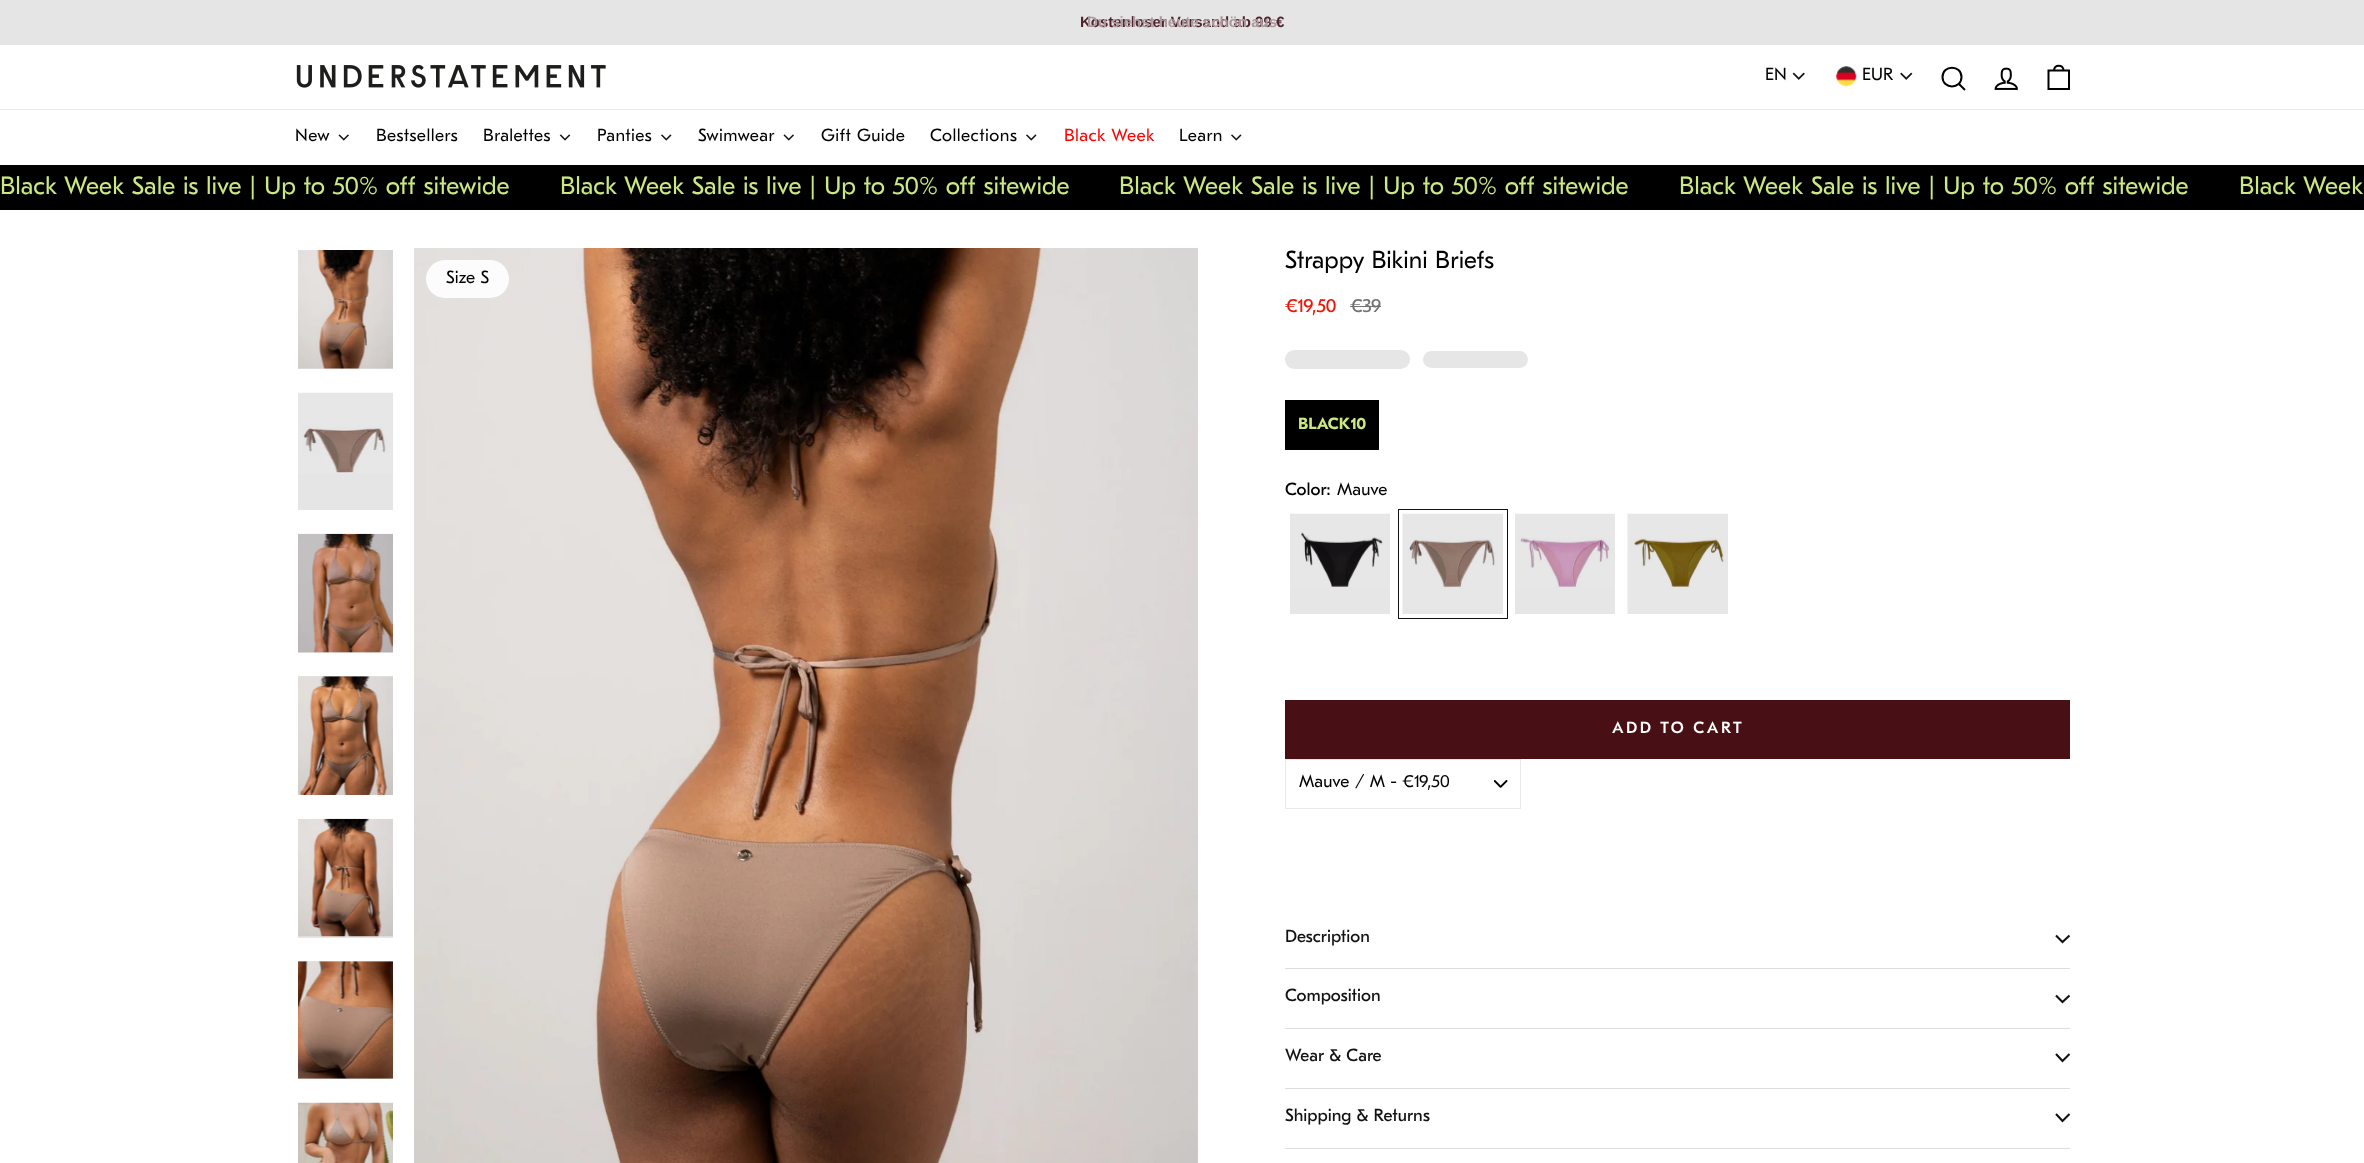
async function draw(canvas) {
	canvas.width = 2364;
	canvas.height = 1163;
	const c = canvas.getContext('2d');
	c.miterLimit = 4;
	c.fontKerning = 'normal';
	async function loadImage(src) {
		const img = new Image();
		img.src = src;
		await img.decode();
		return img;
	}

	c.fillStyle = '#fff';
	c.fillRect(0, 0, 2364, 1163);
	c.fillStyle = '#e5e5e5';
	c.fillRect(0, 0, 2364, 45);
	c.font = 'bold 15px Liberation Sans';
	c.fillStyle = '#52252e';
	c.fillText('Kostenloser Versand ab 99 €', 1080, 27);
	c.fillStyle = '#ab999d';
	c.fillText('Du siehst heute schön aus', 1087, 27);
	c.drawImage(await loadImage('img1.png'), 296, 65, 310, 23);
	c.font = '17.5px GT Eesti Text';
	c.fillStyle = '#000';
	c.fillText('EN', 1765, 80);
	c.drawImage(await loadImage('img2.png'), 1792, 72, 13, 8);
	c.drawImage(await loadImage('img3.png'), 1836, 66, 21, 21);
	c.fillText('EUR', 1862, 80);
	c.drawImage(await loadImage('img4.png'), 1900, 72, 13, 8);
	c.beginPath();
	c.moveTo(1961.5, 77);
	c.bezierCurveTo(1961.5, 89.5, 1942.5, 89.5, 1942.5, 77);
	c.bezierCurveTo(1942.5, 64.5, 1961.5, 64.5, 1961.5, 77);
	c.closePath();
	c.moveTo(1965, 90);
	c.lineTo(1959, 84);
	c.strokeStyle = '#000';
	c.lineWidth = 2;
	c.stroke();
	c.drawImage(await loadImage('img5.png'), 1994, 67, 24, 23);
	c.beginPath();
	c.moveTo(2048.5, 70.5);
	c.lineTo(2069, 70.5);
	c.lineTo(2069, 89);
	c.lineTo(2048.5, 89);
	c.closePath();
	c.moveTo(2054, 70.5);
	c.bezierCurveTo(2054, 64, 2063.5, 64, 2063.5, 70.5);
	c.stroke();
	c.fillStyle = '#eaeaea';
	c.fillRect(0, 109, 2364, 1);
	c.letterSpacing = '0.4px';
	c.fillStyle = '#000';
	c.fillText('New', 295, 141);
	c.drawImage(await loadImage('img6.png'), 338, 134, 11, 7);
	c.fillText('Bestsellers', 376, 141);
	c.fillText('Bralettes', 483, 141);
	c.drawImage(await loadImage('img7.png'), 559, 134, 12, 7);
	c.fillText('Panties', 597, 141);
	c.drawImage(await loadImage('img8.png'), 661, 134, 11, 7);
	c.fillText('Swimwear', 698, 141);
	c.drawImage(await loadImage('img6.png'), 783, 134, 11, 7);
	c.fillText('Gift Guide', 821, 141);
	c.fillText('Collections', 930, 141);
	c.drawImage(await loadImage('img8.png'), 1026, 134, 11, 7);
	c.fillStyle = '#fd0303';
	c.fillText('Black Week', 1064, 141);
	c.fillStyle = '#000';
	c.fillText('Learn', 1179, 141);
	c.drawImage(await loadImage('img8.png'), 1231, 134, 11, 7);
	c.fillRect(0, 165, 2364, 45);
	c.letterSpacing = '0px';
	c.font = '25px GT Eesti Text';
	c.fillStyle = '#cce980';
	for (const [text, x, y] of [
		['Black Week Sale is live | Up to 50% off sitewide', 0, 194],
		['Black Week Sale is live | Up to 50% off sitewide', 560, 194],
		['Black Week Sale is live | Up to 50% off sitewide', 1119, 194],
		['Black Week Sale is live | Up to 50% off sitewide', 1679, 194],
		['Black Week', 2239, 194],
	]) {
		c.fillText(text, x, y);
	}
	c.fillStyle = '#e5e5e5';
	c.fillRect(298, 368, 95, 1);
	c.drawImage(await loadImage('img9.png'), 298, 250, 95, 119);
	c.fillRect(298, 474, 95, 36);
	c.drawImage(await loadImage('img10.png'), 298, 392, 95, 82);
	c.fillRect(298, 652, 95, 1);
	c.drawImage(await loadImage('img11.png'), 298, 533, 95, 120);
	c.fillRect(298, 676, 95, 1);
	c.drawImage(await loadImage('img12.png'), 298, 676, 95, 119);
	c.fillRect(298, 936, 95, 2);
	c.drawImage(await loadImage('img13.png'), 298, 818, 95, 119);
	c.fillRect(298, 961, 95, 118);
	c.drawImage(await loadImage('img14.png'), 298, 961, 95, 118);
	c.drawImage(await loadImage('img15.png'), 298, 1102, 95, 61);
	c.drawImage(await loadImage('img16.png'), 414, 248, 784, 915);
	c.fillStyle = '#ffffffe6';
	c.beginPath();
	c.roundRect(426, 260, 83, 38, 19);
	c.fill();
	c.font = '17.5px GT Eesti Text';
	c.fillStyle = '#000';
	c.fillText('Size S', 446, 283);
	c.font = '24.5px GT Eesti Text';
	c.fillText('Strappy Bikini Briefs', 1285, 268);
	c.font = '19px "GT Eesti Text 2"';
	c.fillStyle = '#eb1808';
	c.fillText('€19,50', 1285, 312);
	c.fillStyle = '#737373';
	c.fillText('€39', 1350, 312);
	c.fillRect(1350, 306, 31, 1);
	c.fillStyle = '#e6e6e6';
	c.beginPath();
	c.roundRect(1285, 350, 125, 19, 9.5);
	c.fill();
	c.beginPath();
	c.roundRect(1423, 351, 105, 17, 8.5);
	c.fill();
	c.fillStyle = '#000';
	c.fillRect(1285, 400, 94, 50);
	c.font = 'bold 16.25px GT Eesti Text';
	c.fillStyle = '#cce980';
	c.fillText('BLACK10', 1298, 429);
	c.font = '17.5px "GT Eesti Text 2"';
	c.fillStyle = '#000';
	c.fillText('Color:', 1285, 495);
	c.font = '17.5px GT Eesti Text';
	c.fillText('Mauve', 1337, 495);
	c.fillStyle = '#e6e6e6';
	c.fillRect(1290, 587, 100, 27);
	c.drawImage(await loadImage('img17.png'), 1290, 513, 100, 74);
	c.strokeStyle = '#121212';
	c.lineWidth = 1;
	c.strokeRect(1398.5, 509.5, 109, 109);
	c.fillRect(1403, 514, 100, 100);
	c.drawImage(await loadImage('img18.png'), 1402, 513, 100, 101);
	c.fillRect(1515, 587, 100, 27);
	c.drawImage(await loadImage('img19.png'), 1515, 513, 100, 74);
	c.fillRect(1628, 514, 100, 100);
	c.drawImage(await loadImage('img20.png'), 1627, 513, 100, 101);
	c.fillStyle = '#480f15';
	c.fillRect(1285, 700, 785, 59);
	c.letterSpacing = '2.5px';
	c.font = '500 16.25px GT Eesti Text';
	c.fillStyle = '#fff';
	c.fillText('ADD TO CART', 1612, 733);
	c.drawImage(await loadImage('img21.png'), 1494, 780, 14, 8);
	c.strokeStyle = '#e8e8e8';
	c.strokeRect(1285.5, 759.5, 235, 49);
	c.letterSpacing = '0px';
	c.font = '17.5px GT Eesti Text';
	c.fillStyle = '#000';
	c.fillText('Mauve / M - €19,50', 1299, 787);
	c.fillStyle = '#ddd';
	c.fillRect(1285, 968, 785, 1);
	c.font = '17.5px "GT Eesti Text 2"';
	c.fillStyle = '#121212';
	c.fillText('Description', 1285, 942);
	c.beginPath();
	c.moveTo(2056, 935.5);
	c.lineTo(2062.5, 942);
	c.lineTo(2069.5, 935.5);
	c.strokeStyle = '#121212';
	c.lineWidth = 2.1;
	c.stroke();
	c.fillStyle = '#ddd';
	c.fillRect(1285, 1028, 785, 1);
	c.fillStyle = '#121212';
	c.fillText('Composition', 1285, 1001);
	c.beginPath();
	c.moveTo(2056, 995.5);
	c.lineTo(2062.5, 1002);
	c.lineTo(2069.5, 995.5);
	c.stroke();
	c.fillStyle = '#ddd';
	c.fillRect(1285, 1088, 785, 1);
	c.fillStyle = '#121212';
	c.fillText('Wear & Care', 1285, 1061);
	c.beginPath();
	c.moveTo(2056, 1054);
	c.lineTo(2062.5, 1061);
	c.lineTo(2069.5, 1054);
	c.stroke();
	c.fillStyle = '#ddd';
	c.fillRect(1285, 1148, 785, 1);
	c.fillStyle = '#121212';
	c.fillText('Shipping & Returns', 1285, 1121);
	c.beginPath();
	c.moveTo(2056, 1114);
	c.lineTo(2062.5, 1121);
	c.lineTo(2069.5, 1114);
	c.stroke();
}

draw(document.querySelector('canvas'));
